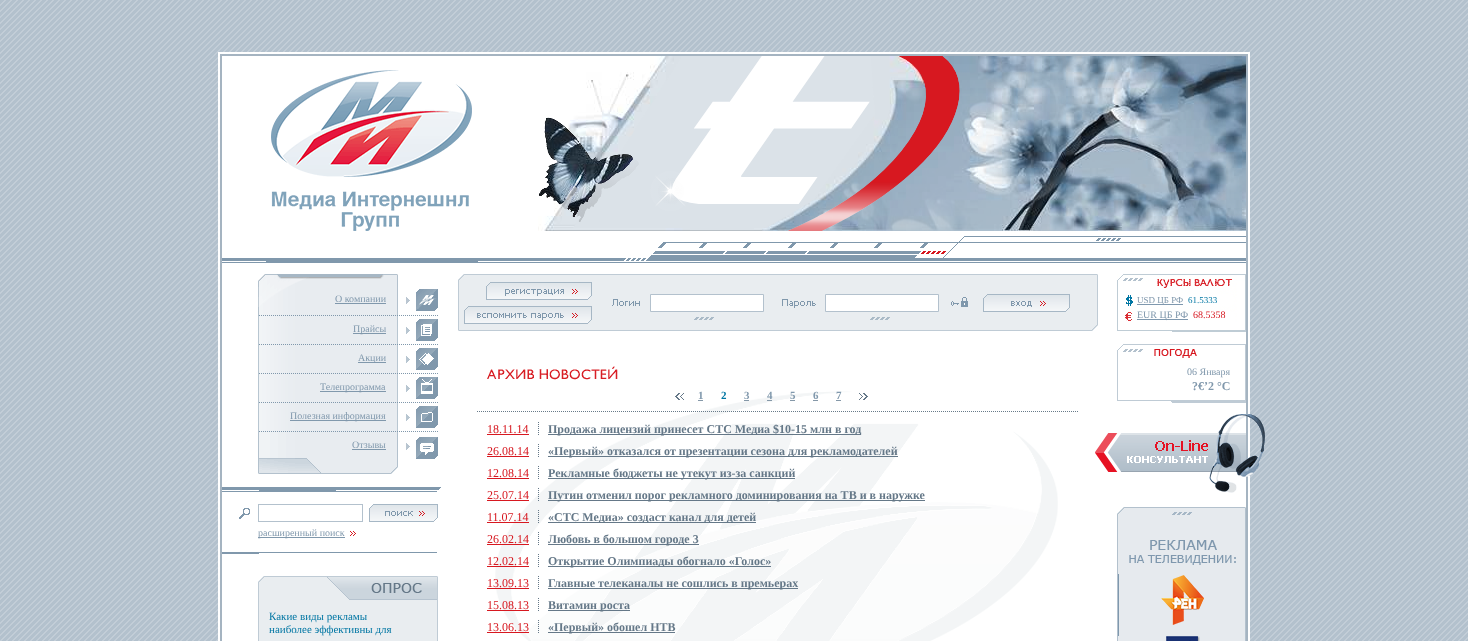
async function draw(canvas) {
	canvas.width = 1468;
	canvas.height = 641;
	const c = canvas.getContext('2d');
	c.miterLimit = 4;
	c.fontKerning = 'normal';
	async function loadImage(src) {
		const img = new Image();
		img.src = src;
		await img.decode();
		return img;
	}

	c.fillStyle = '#fff';
	c.fillRect(0, 0, 1468, 641);
	c.drawImage(await loadImage('img1.png'), 0, 0, 1468, 641);
	c.strokeStyle = '#fff';
	c.lineWidth = 2;
	c.strokeRect(219, 53, 1030, 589);
	c.strokeStyle = '#a5b4c1';
	c.strokeRect(221, 55, 1026, 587);
	c.fillRect(222, 56, 1024, 585);
	c.drawImage(await loadImage('img2.png'), 271, 70, 201, 161);
	c.drawImage(await loadImage('img3.png'), 538, 56, 708, 175);
	c.drawImage(await loadImage('img4.png'), 222, 236, 1024, 27);
	c.drawImage(await loadImage('img5.png'), 258, 274, 158, 42);
	c.font = '10px Liberation Serif';
	c.fillStyle = '#8098ac';
	c.fillText('О компании', 335, 302);
	c.fillRect(335, 303, 51, 1);
	c.drawImage(await loadImage('img6.png'), 416, 289, 22, 27);
	c.drawImage(await loadImage('img7.png'), 258, 316, 158, 29);
	c.fillRect(353, 333, 33, 1);
	c.fillText('Прайсы', 353, 332);
	c.drawImage(await loadImage('img8.png'), 416, 319, 22, 26);
	c.drawImage(await loadImage('img7.png'), 258, 345, 158, 29);
	c.fillRect(358, 362, 28, 1);
	c.fillText('Акции', 358, 361);
	c.drawImage(await loadImage('img9.png'), 416, 348, 22, 26);
	c.drawImage(await loadImage('img7.png'), 258, 374, 158, 29);
	c.fillRect(320, 391, 66, 1);
	c.fillText('Телепрограмма', 320, 390);
	c.drawImage(await loadImage('img10.png'), 416, 377, 22, 26);
	c.drawImage(await loadImage('img7.png'), 258, 403, 158, 29);
	c.fillRect(290, 420, 96, 1);
	c.fillText('Полезная информация', 290, 419);
	c.drawImage(await loadImage('img11.png'), 416, 406, 22, 26);
	c.drawImage(await loadImage('img12.png'), 222, 432, 194, 60);
	c.fillText('Отзывы', 352, 448);
	c.fillRect(352, 449, 34, 1);
	c.drawImage(await loadImage('img13.png'), 416, 437, 25, 55);
	c.drawImage(await loadImage('img14.png'), 222, 504, 216, 50);
	c.strokeStyle = '#b3c1cd';
	c.lineWidth = 1;
	c.strokeRect(258.5, 504.5, 104, 17);
	c.fillRect(258, 537, 87, 1);
	c.fillText('расширенный поиск', 258, 536);
	c.drawImage(await loadImage('img15.png'), 350, 531, 6, 5);
	c.drawImage(await loadImage('img16.png'), 258, 576, 180, 65);
	c.font = '11px Liberation Serif';
	c.fillStyle = '#0076a3';
	c.fillText('Какие виды рекламы', 269, 620);
	c.fillText('наиболее эффективны для', 269, 633);
	c.drawImage(await loadImage('img17.png'), 1117, 274, 129, 58);
	c.fillStyle = '#7f98ae';
	c.fillRect(1137, 304, 46, 1);
	c.font = '9px Liberation Serif';
	c.fillStyle = '#8098ac';
	c.fillText('USD ЦБ РФ', 1137, 303);
	c.fillStyle = '#0076a3';
	c.fillText('61.5333', 1188, 303);
	c.fillStyle = '#7f98ae';
	c.fillRect(1137, 319, 51, 1);
	c.font = '10px Liberation Serif';
	c.fillStyle = '#8098ac';
	c.fillText('EUR ЦБ РФ', 1137, 318);
	c.fillStyle = '#d71820';
	c.fillText('68.5358', 1193, 318);
	c.drawImage(await loadImage('img18.png'), 1117, 344, 129, 59);
	c.fillStyle = '#8098ac';
	c.fillText('06 Января', 1187, 375);
	c.font = 'bold 12px Liberation Serif';
	c.fillText('?€’2 °C', 1192, 390);
	c.drawImage(await loadImage('img19.png'), 1095, 414, 170, 79);
	c.drawImage(await loadImage('img20.png'), 1117, 507, 129, 134);
	c.drawImage(await loadImage('img21.png'), 495, 391, 563, 250);
	c.drawImage(await loadImage('img22.png'), 458, 274, 640, 57);
	c.fillStyle = '#fff';
	c.beginPath();
	c.rect(650.5, 294.5, 113, 17);
	c.fill();
	c.stroke();
	c.beginPath();
	c.rect(825.5, 294.5, 113, 17);
	c.fill();
	c.stroke();
	c.drawImage(await loadImage('img23.png'), 487, 366, 131, 14);
	c.drawImage(await loadImage('img24.png'), 675, 393, 9, 7);
	c.font = 'bold 11px Liberation Serif';
	c.fillStyle = '#8098ac';
	c.fillText('1', 698, 399);
	c.fillStyle = '#8598a8';
	c.fillRect(698, 400, 5, 1);
	c.fillStyle = '#0076a3';
	c.fillText('2', 721, 399);
	c.fillStyle = '#8098ac';
	c.fillText('3', 744, 399);
	c.fillStyle = '#8598a8';
	c.fillRect(744, 400, 5, 1);
	c.fillStyle = '#8098ac';
	c.fillText('4', 767, 399);
	c.fillStyle = '#8598a8';
	c.fillRect(767, 400, 5, 1);
	c.fillStyle = '#8098ac';
	c.fillText('5', 790, 399);
	c.fillStyle = '#8598a8';
	c.fillRect(790, 400, 5, 1);
	c.fillStyle = '#8098ac';
	c.fillText('6', 813, 399);
	c.fillStyle = '#8598a8';
	c.fillRect(813, 400, 5, 1);
	c.fillStyle = '#8098ac';
	c.fillText('7', 836, 399);
	c.fillStyle = '#8598a8';
	c.fillRect(836, 400, 5, 1);
	c.drawImage(await loadImage('img25.png'), 859, 393, 9, 7);
	c.drawImage(await loadImage('img26.png'), 477, 411, 601, 1);
	c.font = '12px Liberation Serif';
	c.fillStyle = '#d71820';
	c.fillText('18.11.14', 487, 433);
	c.fillRect(487, 434, 42, 1);
	c.drawImage(await loadImage('img27.png'), 538, 422, 1, 13);
	c.fillStyle = '#657888';
	c.fillRect(548, 434, 313, 1);
	c.font = 'bold 12px Liberation Serif';
	c.fillText('Продажа лицензий принесет СТС Медиа $10-15 млн в год', 548, 433);
	c.font = '12px Liberation Serif';
	c.fillStyle = '#d71820';
	c.fillText('26.08.14', 487, 455);
	c.fillRect(487, 456, 42, 1);
	c.drawImage(await loadImage('img27.png'), 538, 444, 1, 13);
	c.fillStyle = '#657888';
	c.fillRect(548, 456, 350, 1);
	c.font = 'bold 12px Liberation Serif';
	c.fillText('«Первый» отказался от презентации сезона для рекламодателей', 548, 455);
	c.font = '12px Liberation Serif';
	c.fillStyle = '#d71820';
	c.fillText('12.08.14', 487, 477);
	c.fillRect(487, 478, 42, 1);
	c.drawImage(await loadImage('img27.png'), 538, 466, 1, 13);
	c.fillStyle = '#657888';
	c.fillRect(548, 478, 247, 1);
	c.font = 'bold 12px Liberation Serif';
	c.fillText('Рекламные бюджеты не утекут из-за санкций', 548, 477);
	c.font = '12px Liberation Serif';
	c.fillStyle = '#d71820';
	c.fillText('25.07.14', 487, 499);
	c.fillRect(487, 500, 42, 1);
	c.drawImage(await loadImage('img28.png'), 538, 488, 1, 13);
	c.fillStyle = '#657888';
	c.fillRect(548, 500, 377, 1);
	c.font = 'bold 12px Liberation Serif';
	c.fillText('Путин отменил порог рекламного доминирования на ТВ и в наружке', 548, 499);
	c.font = '12px Liberation Serif';
	c.fillStyle = '#d71820';
	c.fillText('11.07.14', 487, 521);
	c.fillRect(487, 522, 42, 1);
	c.drawImage(await loadImage('img29.png'), 538, 510, 1, 13);
	c.fillStyle = '#657888';
	c.fillRect(548, 522, 208, 1);
	c.font = 'bold 12px Liberation Serif';
	c.fillText('«СТС Медиа» создаст канал для детей', 548, 521);
	c.font = '12px Liberation Serif';
	c.fillStyle = '#d71820';
	c.fillText('26.02.14', 487, 543);
	c.fillRect(487, 544, 42, 1);
	c.drawImage(await loadImage('img27.png'), 538, 532, 1, 13);
	c.fillStyle = '#657888';
	c.fillRect(548, 544, 151, 1);
	c.font = 'bold 12px Liberation Serif';
	c.fillText('Любовь в большом городе 3', 548, 543);
	c.font = '12px Liberation Serif';
	c.fillStyle = '#d71820';
	c.fillText('12.02.14', 487, 565);
	c.fillRect(487, 566, 42, 1);
	c.drawImage(await loadImage('img27.png'), 538, 554, 1, 13);
	c.fillStyle = '#657888';
	c.fillRect(548, 566, 223, 1);
	c.font = 'bold 12px Liberation Serif';
	c.fillText('Открытие Олимпиады обогнало «Голос»', 548, 565);
	c.font = '12px Liberation Serif';
	c.fillStyle = '#d71820';
	c.fillText('13.09.13', 487, 587);
	c.fillRect(487, 588, 42, 1);
	c.drawImage(await loadImage('img27.png'), 538, 576, 1, 13);
	c.fillStyle = '#657888';
	c.fillRect(548, 588, 250, 1);
	c.font = 'bold 12px Liberation Serif';
	c.fillText('Главные телеканалы не сошлись в премьерах', 548, 587);
	c.font = '12px Liberation Serif';
	c.fillStyle = '#d71820';
	c.fillText('15.08.13', 487, 609);
	c.fillRect(487, 610, 42, 1);
	c.drawImage(await loadImage('img27.png'), 538, 598, 1, 13);
	c.fillStyle = '#657888';
	c.fillRect(548, 610, 82, 1);
	c.font = 'bold 12px Liberation Serif';
	c.fillText('Витамин роста', 548, 609);
	c.font = '12px Liberation Serif';
	c.fillStyle = '#d71820';
	c.fillText('13.06.13', 487, 631);
	c.fillRect(487, 632, 42, 1);
	c.drawImage(await loadImage('img30.png'), 538, 620, 1, 13);
	c.fillStyle = '#657888';
	c.fillRect(548, 632, 127, 1);
	c.font = 'bold 12px Liberation Serif';
	c.fillText('«Первый» обошел НТВ', 548, 631);
}

draw(document.querySelector('canvas'));
